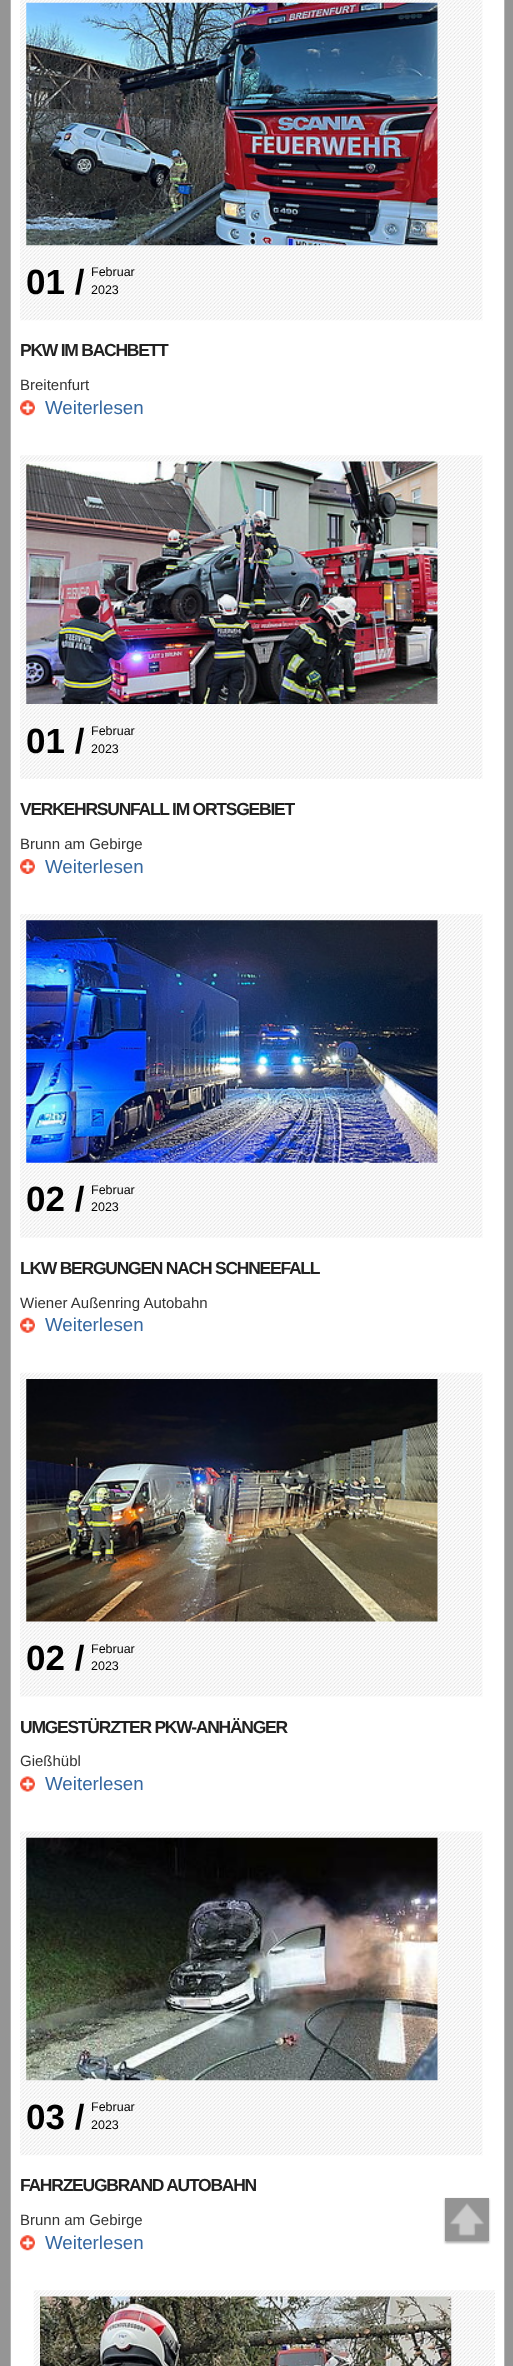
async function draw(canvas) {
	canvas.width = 513;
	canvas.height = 2366;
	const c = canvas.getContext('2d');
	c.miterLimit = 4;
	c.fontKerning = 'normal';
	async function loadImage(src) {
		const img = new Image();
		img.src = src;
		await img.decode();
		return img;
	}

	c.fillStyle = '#959595';
	c.fillRect(0, 0, 513, 2366);
	for (const [x, y, w, h, color] of [
		[11, 0, 493, 2366, '#fff'],
		[504, 0, 1, 2366, '#b4b4b4'],
		[10, 0, 1, 2366, '#b4b4b4'],
	]) {
		c.fillStyle = color;
		c.fillRect(x, y, w, h);
	}
	c.drawImage(await loadImage('img1.png'), 20, 0, 463, 321);
	c.drawImage(await loadImage('img2.png'), 26, 2, 412, 244);
	c.font = 'bold 35px Liberation Sans';
	c.fillStyle = '#000';
	c.fillText('01 /', 26, 294);
	c.font = '12.5px Liberation Sans';
	c.fillText('Februar', 91, 276);
	c.fillText('2023', 91, 294);
	c.letterSpacing = '-1.25px';
	c.font = 'bold 17.5px Liberation Sans';
	c.fillStyle = '#222';
	c.fillText('PKW IM BACHBETT', 20, 356);
	c.letterSpacing = '0px';
	c.font = '15px Liberation Sans';
	c.fillStyle = '#333';
	c.fillText('Breitenfurt', 20, 390);
	c.drawImage(await loadImage('img3.png'), 20, 400, 15, 16);
	c.font = '18.75px Liberation Sans';
	c.fillStyle = '#3467a0';
	c.fillText('Weiterlesen', 45, 414);
	c.drawImage(await loadImage('img4.png'), 20, 455, 463, 324);
	c.drawImage(await loadImage('img5.png'), 26, 461, 412, 243);
	c.font = 'bold 35px Liberation Sans';
	c.fillStyle = '#000';
	c.fillText('01 /', 26, 753);
	c.font = '12.5px Liberation Sans';
	c.fillText('Februar', 91, 735);
	c.fillText('2023', 91, 753);
	c.letterSpacing = '-1.25px';
	c.font = 'bold 17.5px Liberation Sans';
	c.fillStyle = '#222';
	c.fillText('VERKEHRSUNFALL IM ORTSGEBIET', 20, 815);
	c.letterSpacing = '0px';
	c.font = '15px Liberation Sans';
	c.fillStyle = '#333';
	c.fillText('Brunn am Gebirge', 20, 849);
	c.drawImage(await loadImage('img6.png'), 20, 859, 15, 15);
	c.font = '18.75px Liberation Sans';
	c.fillStyle = '#3467a0';
	c.fillText('Weiterlesen', 45, 873);
	c.drawImage(await loadImage('img7.png'), 20, 914, 463, 324);
	c.drawImage(await loadImage('img8.png'), 26, 920, 412, 243);
	c.font = 'bold 35px Liberation Sans';
	c.fillStyle = '#000';
	c.fillText('02 /', 26, 1211);
	c.font = '12.5px Liberation Sans';
	c.fillText('Februar', 91, 1194);
	c.fillText('2023', 91, 1211);
	c.letterSpacing = '-1.25px';
	c.font = 'bold 17.5px Liberation Sans';
	c.fillStyle = '#222';
	c.fillText('LKW BERGUNGEN NACH SCHNEEFALL', 20, 1274);
	c.letterSpacing = '0px';
	c.font = '15px Liberation Sans';
	c.fillStyle = '#333';
	c.fillText('Wiener Außenring Autobahn', 20, 1308);
	c.drawImage(await loadImage('img9.png'), 20, 1317, 15, 16);
	c.font = '18.75px Liberation Sans';
	c.fillStyle = '#3467a0';
	c.fillText('Weiterlesen', 45, 1331);
	c.drawImage(await loadImage('img10.png'), 20, 1372, 463, 325);
	c.drawImage(await loadImage('img11.png'), 26, 1379, 412, 243);
	c.font = 'bold 35px Liberation Sans';
	c.fillStyle = '#000';
	c.fillText('02 /', 26, 1670);
	c.font = '12.5px Liberation Sans';
	c.fillText('Februar', 91, 1653);
	c.fillText('2023', 91, 1670);
	c.letterSpacing = '-1.25px';
	c.font = 'bold 17.5px Liberation Sans';
	c.fillStyle = '#222';
	c.fillText('UMGESTÜRZTER PKW-ANHÄNGER', 20, 1733);
	c.letterSpacing = '0px';
	c.font = '15px Liberation Sans';
	c.fillStyle = '#333';
	c.fillText('Gießhübl', 20, 1766);
	c.drawImage(await loadImage('img12.png'), 20, 1776, 15, 16);
	c.font = '18.75px Liberation Sans';
	c.fillStyle = '#3467a0';
	c.fillText('Weiterlesen', 45, 1790);
	c.drawImage(await loadImage('img13.png'), 20, 1831, 463, 325);
	c.drawImage(await loadImage('img14.png'), 26, 1837, 412, 244);
	c.font = 'bold 35px Liberation Sans';
	c.fillStyle = '#000';
	c.fillText('03 /', 26, 2129);
	c.font = '12.5px Liberation Sans';
	c.fillText('Februar', 91, 2111);
	c.fillText('2023', 91, 2129);
	c.letterSpacing = '-1.25px';
	c.font = 'bold 17.5px Liberation Sans';
	c.fillStyle = '#222';
	c.fillText('FAHRZEUGBRAND AUTOBAHN', 20, 2191);
	c.letterSpacing = '0px';
	c.font = '15px Liberation Sans';
	c.fillStyle = '#333';
	c.fillText('Brunn am Gebirge', 20, 2225);
	c.drawImage(await loadImage('img3.png'), 20, 2235, 15, 16);
	c.font = '18.75px Liberation Sans';
	c.fillStyle = '#3467a0';
	c.fillText('Weiterlesen', 45, 2249);
	c.drawImage(await loadImage('img15.png'), 33, 2290, 462, 76);
	c.drawImage(await loadImage('img16.png'), 40, 2296, 412, 70);
	c.fillStyle = '#808080ab';
	c.filter = 'blur(1px)';
	c.beginPath();
	c.rect(445, 2199, 44, 44);
	c.fill();
	c.filter = 'none';
	c.fillStyle = '#949494';
	c.fillRect(445, 2198, 44, 43);
	c.drawImage(await loadImage('img17.png'), 450, 2203, 34, 33);
}

draw(document.querySelector('canvas'));
